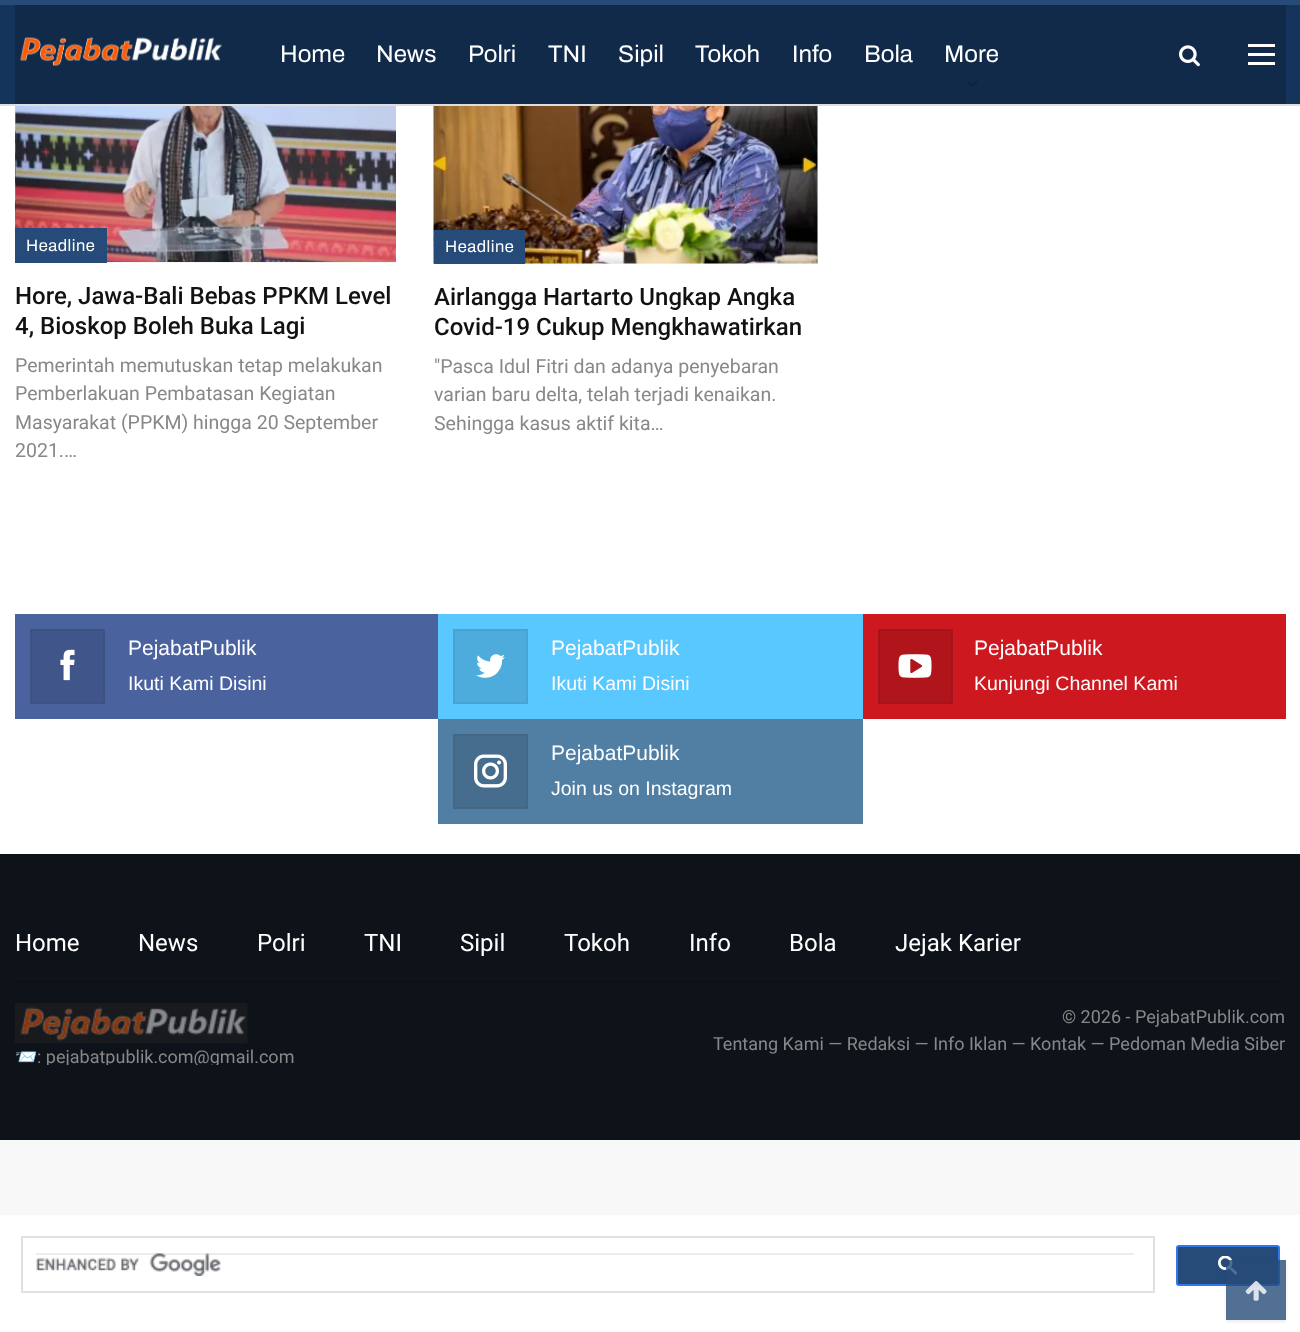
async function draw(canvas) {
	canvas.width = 1300;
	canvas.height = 1332;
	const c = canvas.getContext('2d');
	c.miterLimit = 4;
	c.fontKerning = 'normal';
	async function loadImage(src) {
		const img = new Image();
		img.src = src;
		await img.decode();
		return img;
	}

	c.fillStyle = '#fff';
	c.fillRect(0, 0, 1300, 1332);
	for (const [x, y, w, h, color] of [
		[0, 5, 1300, 99, '#15345c'],
		[0, 0, 1300, 5, '#274b79'],
		[0, 104, 1300, 2, '#dedede'],
		[15, 5, 1271, 99, '#112a4a'],
	]) {
		c.fillStyle = color;
		c.fillRect(x, y, w, h);
	}
	c.drawImage(await loadImage('img1.png'), 20, 37, 202, 29);
	c.font = '24px Archivo';
	c.fillStyle = '#fff';
	for (const [text, x, y] of [
		['Home', 280, 62],
		['News', 376, 62],
		['Polri', 468, 62],
		['TNI', 548, 62],
		['Sipil', 618, 62],
		['Tokoh', 695, 62],
		['Info', 792, 62],
		['Bola', 864, 62],
		['More', 944, 62],
	]) {
		c.fillText(text, x, y);
	}
	c.drawImage(await loadImage('img2.png'), 967, 80, 11, 7);
	c.drawImage(await loadImage('img3.png'), 1179, 45, 21, 22);
	for (const [x, y, w, h, color] of [
		[1248, 53, 27, 3, '#fff'],
		[1248, 44, 27, 3, '#fff'],
		[1248, 62, 27, 3, '#fff'],
		[107, 262, 289, 1, '#f5f5f5'],
	]) {
		c.fillStyle = color;
		c.fillRect(x, y, w, h);
	}
	c.drawImage(await loadImage('img4.png'), 15, 106, 381, 156);
	c.fillStyle = '#274b79';
	c.fillRect(15, 228, 92, 35);
	c.letterSpacing = '0.5px';
	c.font = '16.5px Archivo';
	c.fillStyle = '#fff';
	c.fillText('Headline', 26, 251);
	c.letterSpacing = '0px';
	c.font = '500 24px Roboto';
	c.fillStyle = '#121212';
	c.fillText('Hore, Jawa-Bali Bebas PPKM Level', 15, 304);
	c.fillText('4, Bioskop Boleh Buka Lagi', 15, 334);
	c.font = '19.5px Roboto';
	c.fillStyle = '#888';
	for (const [text, x, y] of [
		['Pemerintah memutuskan tetap melakukan', 15, 372],
		['Pemberlakuan Pembatasan Kegiatan', 15, 400],
		['Masyarakat (PPKM) hingga 20 September', 15, 429],
		['2021.…', 15, 457],
	]) {
		c.fillText(text, x, y);
	}
	c.fillStyle = '#f5f5f5';
	c.fillRect(525, 106, 293, 158);
	c.drawImage(await loadImage('img5.png'), 433, 106, 385, 158);
	c.fillStyle = '#274b79';
	c.fillRect(434, 230, 91, 34);
	c.letterSpacing = '0.5px';
	c.font = '16.5px Archivo';
	c.fillStyle = '#fff';
	c.fillText('Headline', 445, 252);
	c.letterSpacing = '0px';
	c.font = '500 24px Roboto';
	c.fillStyle = '#121212';
	c.fillText('Airlangga Hartarto Ungkap Angka', 434, 305);
	c.fillText('Covid-19 Cukup Mengkhawatirkan', 434, 335);
	c.font = '19.5px Roboto';
	c.fillStyle = '#888';
	for (const [text, x, y] of [
		['"Pasca Idul Fitri dan adanya penyebaran', 434, 373],
		['varian baru delta, telah terjadi kenaikan.', 434, 401],
		['Sehingga kasus aktif kita…', 434, 430],
	]) {
		c.fillText(text, x, y);
	}
	c.fillStyle = '#4a639f';
	c.fillRect(15, 614, 423, 105);
	c.fillStyle = '#405589';
	c.beginPath();
	c.rect(31, 630, 73, 73);
	c.fill();
	c.strokeStyle = '#3d5182';
	c.lineWidth = 2;
	c.stroke();
	c.drawImage(await loadImage('img6.png'), 60, 649, 15, 32);
	c.font = '21px Liberation Sans';
	c.fillStyle = '#fff';
	c.fillText('PejabatPublik', 128, 655);
	c.font = '19.5px Liberation Sans';
	c.fillText('Ikuti Kami Disini', 128, 690);
	c.fillStyle = '#59c8ff';
	c.fillRect(438, 614, 425, 105);
	c.fillStyle = '#4dacdb';
	c.beginPath();
	c.rect(454, 630, 73, 73);
	c.fill();
	c.strokeStyle = '#49a3d0';
	c.stroke();
	c.drawImage(await loadImage('img7.png'), 476, 654, 29, 24);
	c.font = '21px Liberation Sans';
	c.fillStyle = '#fff';
	c.fillText('PejabatPublik', 551, 655);
	c.font = '19.5px Liberation Sans';
	c.fillText('Ikuti Kami Disini', 551, 690);
	c.fillStyle = '#cc181e';
	c.fillRect(863, 614, 423, 105);
	c.fillStyle = '#af151a';
	c.beginPath();
	c.rect(879, 630, 73, 73);
	c.fill();
	c.strokeStyle = '#a61419';
	c.stroke();
	c.drawImage(await loadImage('img8.png'), 898, 654, 34, 24);
	c.font = '21px Liberation Sans';
	c.fillStyle = '#fff';
	c.fillText('PejabatPublik', 974, 655);
	c.font = '19.5px Liberation Sans';
	c.fillText('Kunjungi Channel Kami', 974, 690);
	c.fillStyle = '#517fa4';
	c.fillRect(438, 719, 425, 105);
	c.fillStyle = '#466d8d';
	c.beginPath();
	c.rect(454, 735, 73, 73);
	c.fill();
	c.strokeStyle = '#436886';
	c.stroke();
	c.drawImage(await loadImage('img9.png'), 474, 754, 33, 34);
	c.font = '21px Liberation Sans';
	c.fillStyle = '#fff';
	c.fillText('PejabatPublik', 551, 760);
	c.font = '19.5px Liberation Sans';
	c.fillText('Join us on Instagram', 551, 795);
	c.fillStyle = '#0e131a';
	c.fillRect(0, 854, 1300, 286);
	c.fillStyle = '#0c1117';
	c.fillRect(15, 980, 1271, 3);
	c.font = '24px Roboto';
	c.fillStyle = '#fff';
	for (const [text, x, y] of [
		['Home', 15, 951],
		['News', 138, 951],
		['Polri', 257, 951],
		['TNI', 364, 951],
		['Sipil', 460, 951],
		['Tokoh', 564, 951],
		['Info', 689, 951],
		['Bola', 789, 951],
		['Jejak Karier', 895, 951],
	]) {
		c.fillText(text, x, y);
	}
	c.drawImage(await loadImage('img10.png'), 15, 1003, 233, 41);
	c.save();
	c.beginPath();
	c.rect(0, 908, 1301, 157);
	c.clip();
	c.font = '18px Noto Color Emoji';
	c.fillStyle = '#888';
	c.fillText('📨', 15, 1063);
	c.font = '18px Roboto';
	c.fillText(': pejabatpublik.com@gmail.com', 37, 1063);
	c.restore();
	c.font = '18px Roboto';
	c.fillStyle = '#888';
	c.fillText('© 2026 - PejabatPublik.com', 1062, 1023);
	c.fillText('Tentang Kami — Redaksi — Info Iklan — Kontak — Pedoman Media Siber', 713, 1050);
	c.fillStyle = '#f8f8f8';
	c.fillRect(0, 1140, 1300, 75);
	c.strokeStyle = '#dfe1e5';
	c.strokeRect(22, 1237, 1132, 55);
	c.drawImage(await loadImage('img11.png'), 36, 1253, 185, 23);
	c.fillStyle = '#00000012';
	c.fillRect(36, 1253, 1098, 2);
	c.fillStyle = '#274b79';
	c.beginPath();
	c.roundRect(1177, 1246, 102, 39, 2);
	c.fill();
	c.strokeStyle = '#3079ed';
	c.stroke();
	c.drawImage(await loadImage('img12.png'), 1218, 1256, 20, 19);
	c.save();
	c.beginPath();
	c.moveTo(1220, 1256);
	c.lineTo(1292, 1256);
	c.lineTo(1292, 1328);
	c.lineTo(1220, 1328);
	c.closePath();
	c.moveTo(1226, 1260);
	c.lineTo(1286, 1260);
	c.lineTo(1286, 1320);
	c.lineTo(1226, 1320);
	c.closePath();
	c.clip('evenodd');
	c.fillStyle = '#00000012';
	c.filter = 'blur(1.5px)';
	c.beginPath();
	c.rect(1226, 1262, 60, 60);
	c.fill();
	c.filter = 'none';
	c.restore();
	c.fillStyle = '#274b79cc';
	c.fillRect(1226, 1260, 60, 60);
	c.drawImage(await loadImage('img13.png'), 1245, 1281, 22, 20);
}

draw(document.querySelector('canvas'));
